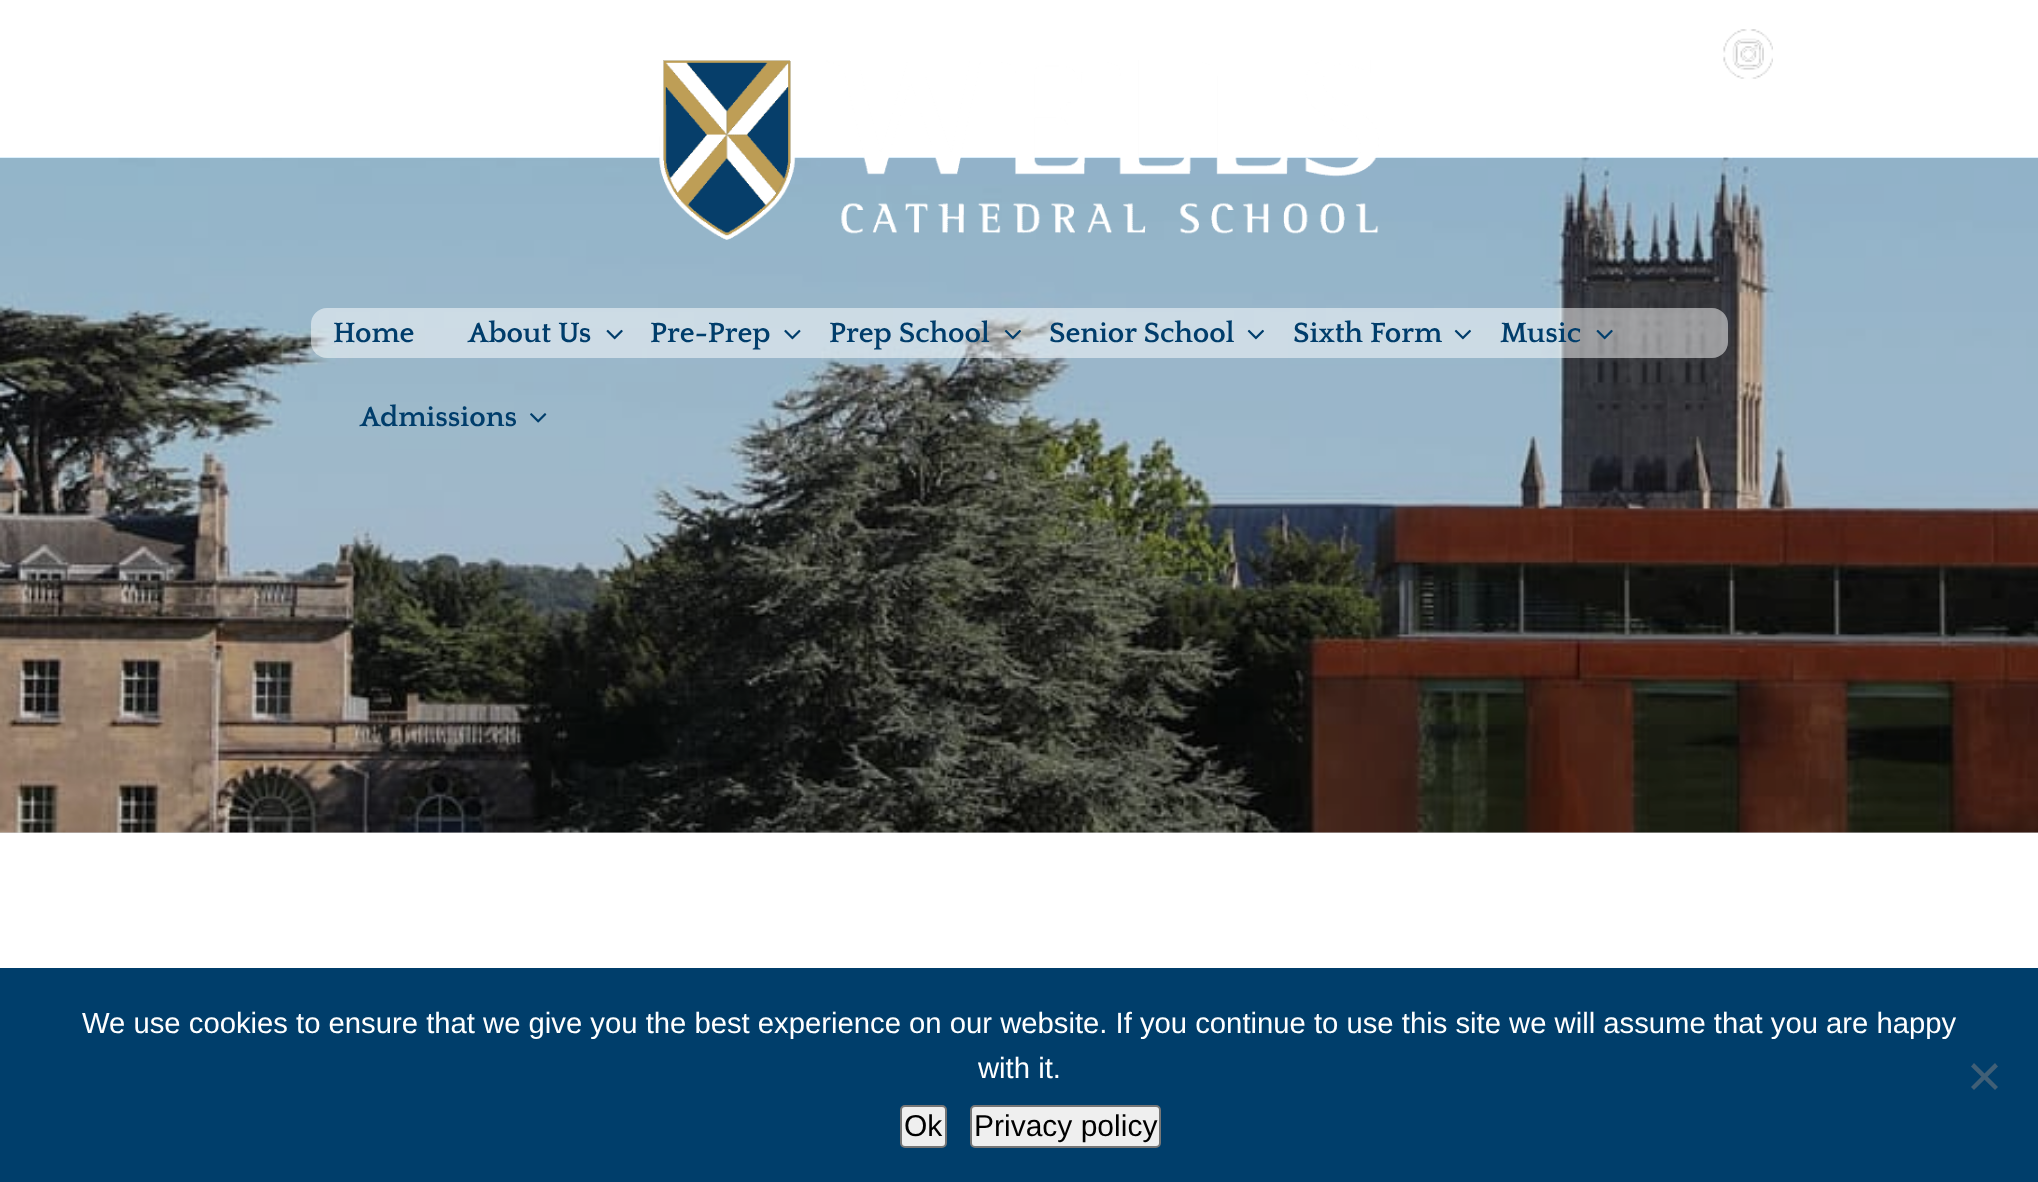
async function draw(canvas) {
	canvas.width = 2038;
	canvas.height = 1182;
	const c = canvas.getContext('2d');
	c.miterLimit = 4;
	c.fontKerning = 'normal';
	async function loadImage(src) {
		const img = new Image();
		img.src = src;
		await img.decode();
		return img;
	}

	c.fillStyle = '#fff';
	c.fillRect(0, 0, 2038, 1182);
	c.fillStyle = '#ccc';
	c.fillRect(0, 832, 2038, 1);
	c.drawImage(await loadImage('img1.png'), 0, 157, 2038, 676);
	c.drawImage(await loadImage('img2.png'), 659, 60, 720, 180);
	c.drawImage(await loadImage('img3.png'), 1723, 29, 50, 50);
	c.fillStyle = '#ffffff80';
	c.beginPath();
	c.roundRect(311, 308, 1417, 50, 16);
	c.fill();
	c.font = 'bold 29.25px Quattrocento';
	c.fillStyle = '#003d6b';
	c.fillText('Home', 333, 342);
	c.fillText('About Us', 468, 342);
	c.drawImage(await loadImage('img4.png'), 606, 329, 17, 11);
	c.fillText('Pre-Prep', 650, 342);
	c.drawImage(await loadImage('img5.png'), 784, 329, 17, 11);
	c.fillText('Prep School', 829, 342);
	c.drawImage(await loadImage('img6.png'), 1004, 329, 17, 11);
	c.fillText('Senior School', 1049, 342);
	c.drawImage(await loadImage('img7.png'), 1247, 329, 17, 11);
	c.fillText('Sixth Form', 1293, 342);
	c.drawImage(await loadImage('img8.png'), 1454, 329, 17, 11);
	c.fillText('Music', 1500, 342);
	c.drawImage(await loadImage('img9.png'), 1596, 329, 17, 11);
	c.fillText('Admissions', 360, 426);
	c.drawImage(await loadImage('img10.png'), 530, 413, 17, 10);
	c.fillStyle = '#003e6b';
	c.fillRect(0, 968, 2038, 214);
	c.font = '29.25px Liberation Sans';
	c.fillStyle = '#fff';
	c.fillText('We use cookies to ensure that we give you the best experience on our website. If you continue to use this site we will assume that you are happy', 82, 1033);
	c.fillText('with it.', 978, 1078);
	c.fillStyle = '#405f76';
	c.beginPath();
	c.moveTo(1995, 1063);
	c.lineTo(1998, 1066.5);
	c.lineTo(1974, 1090);
	c.lineTo(1971, 1087);
	c.closePath();
	c.fill();
	c.beginPath();
	c.moveTo(1971, 1066.5);
	c.lineTo(1974, 1063);
	c.lineTo(1998, 1087);
	c.lineTo(1995, 1090);
	c.closePath();
	c.fill();
	c.fillStyle = '#efefef';
	c.beginPath();
	c.roundRect(901, 1106, 45, 41, 4);
	c.fill();
	c.strokeStyle = '#767676';
	c.lineWidth = 2;
	c.stroke();
	c.font = '30px Liberation Sans';
	c.fillStyle = '#000';
	c.fillText('Ok', 904, 1136);
	c.fillStyle = '#efefef';
	c.beginPath();
	c.roundRect(971, 1106, 189, 41, 4);
	c.fill();
	c.stroke();
	c.fillStyle = '#000';
	c.fillText('Privacy policy', 974, 1136);
}

draw(document.querySelector('canvas'));
